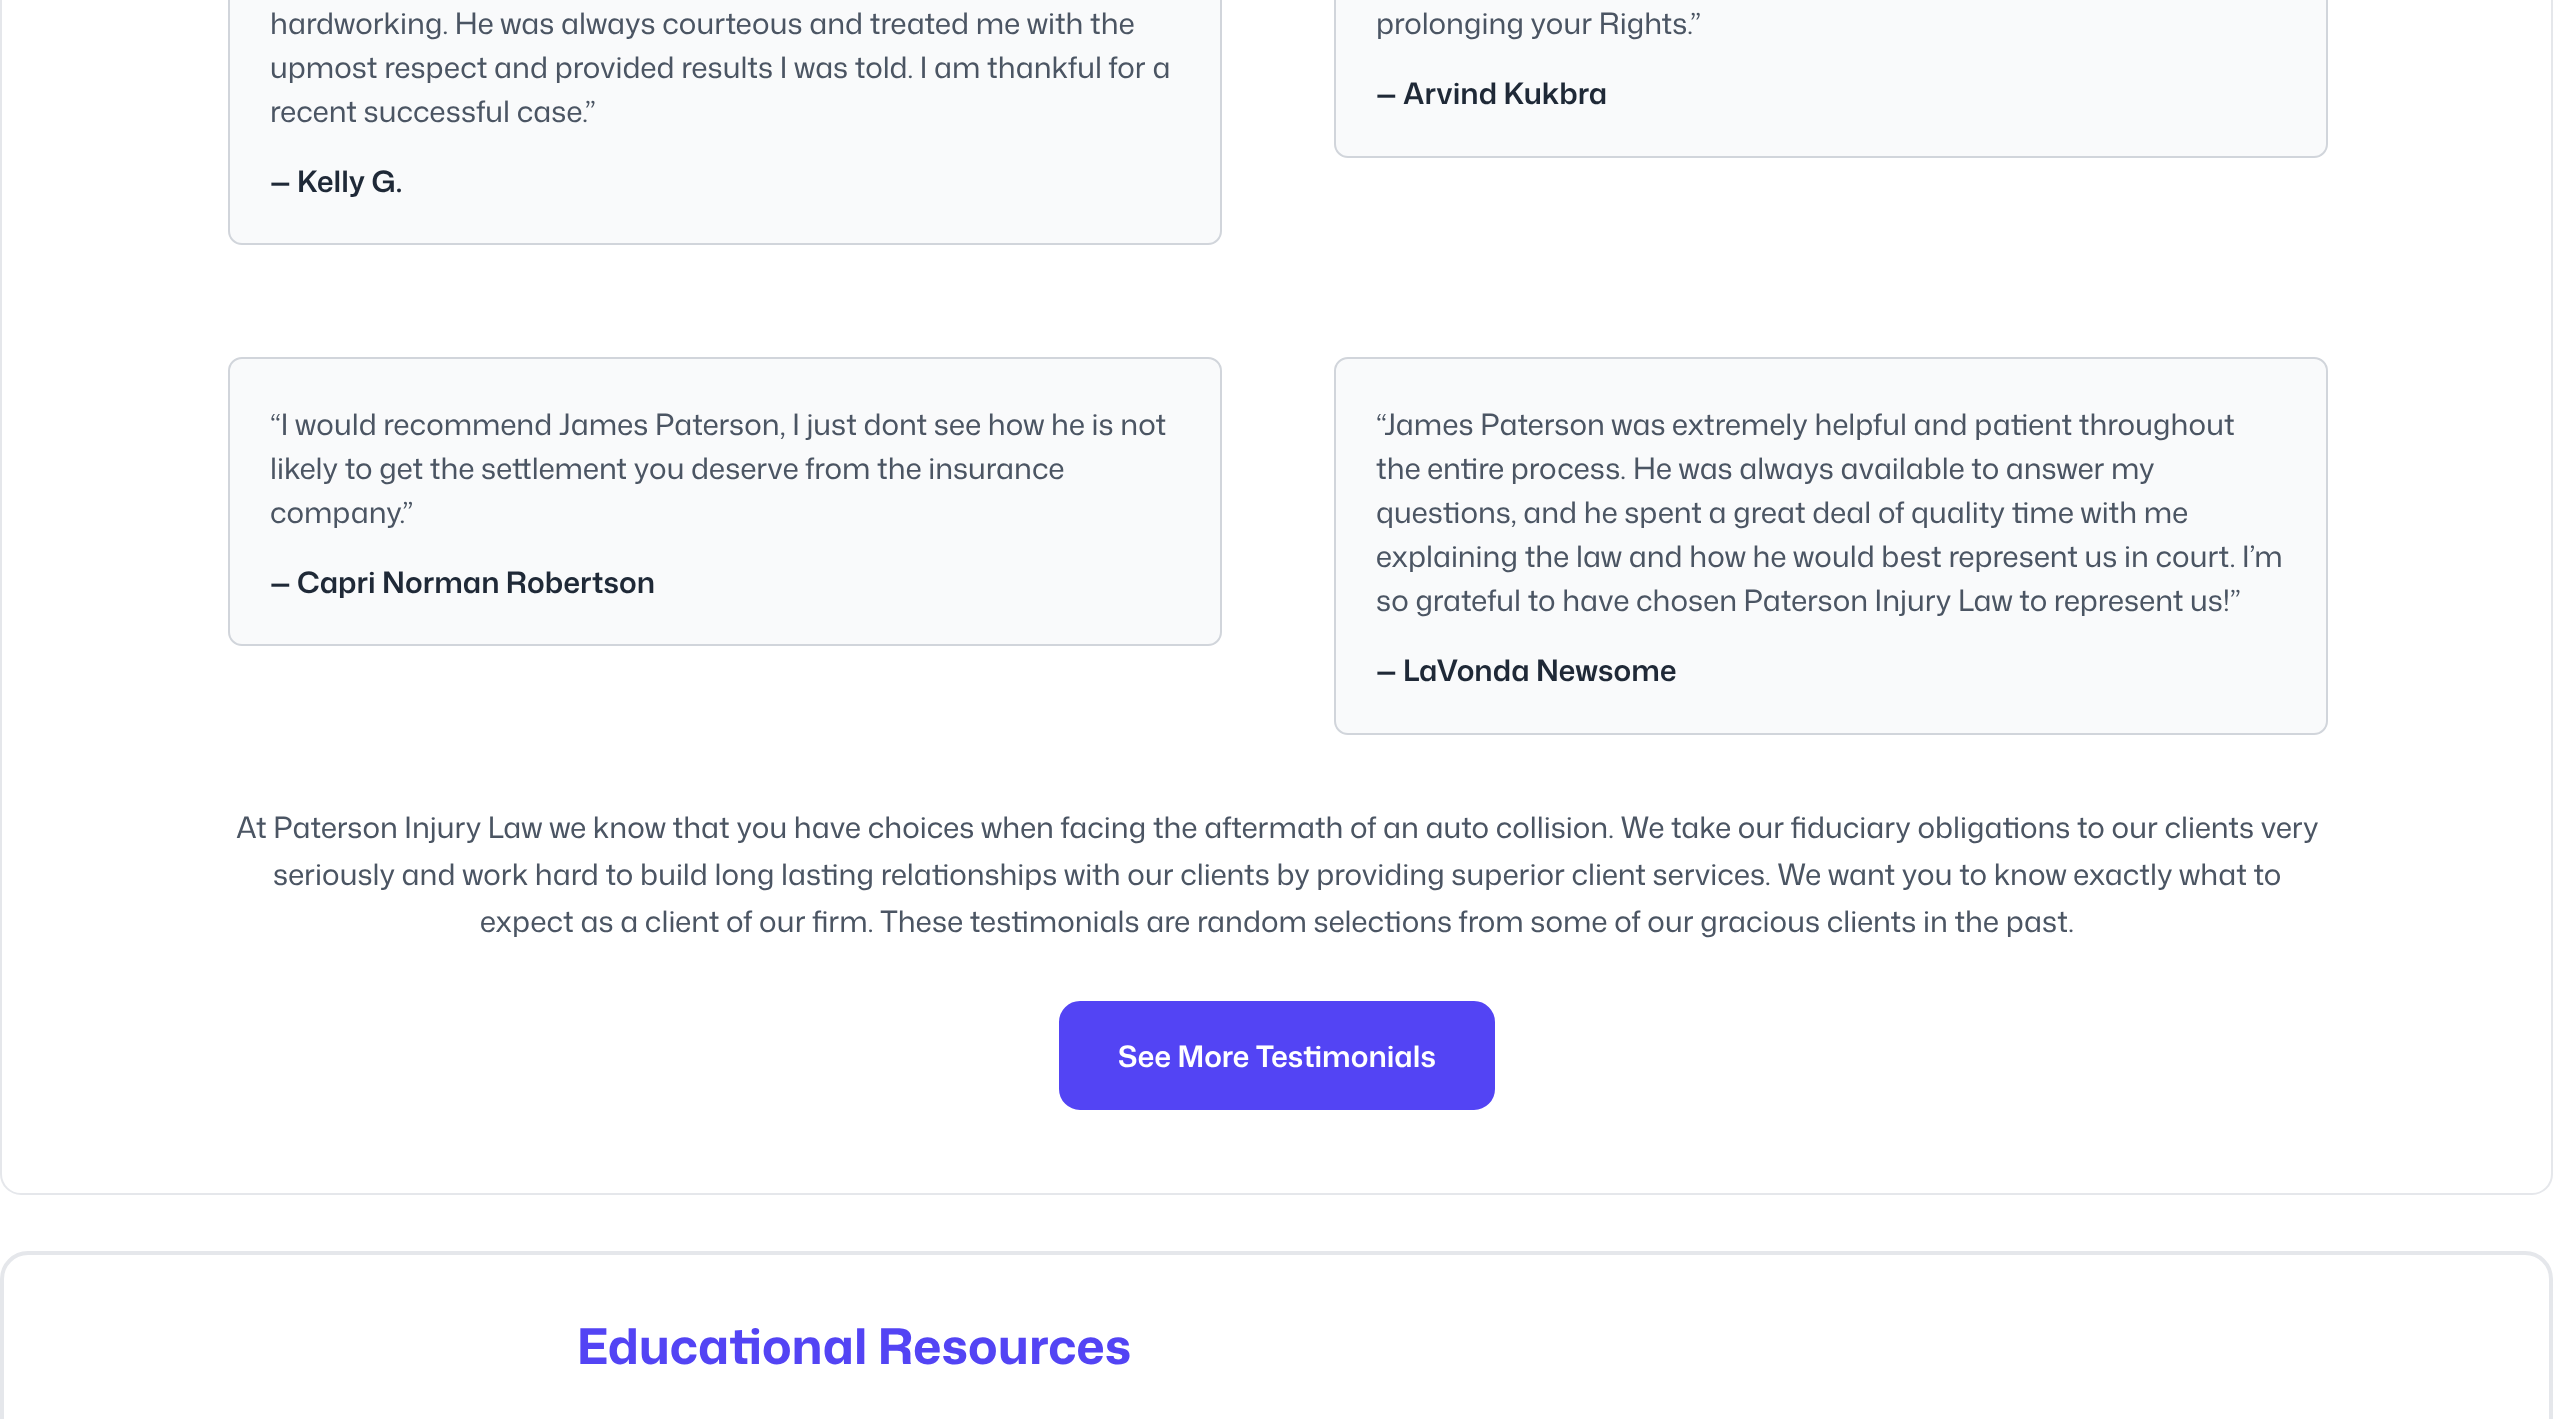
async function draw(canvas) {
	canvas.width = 2553;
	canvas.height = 1419;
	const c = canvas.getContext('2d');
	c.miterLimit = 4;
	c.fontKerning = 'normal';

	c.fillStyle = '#fff';
	c.fillRect(0, 0, 2553, 1419);
	c.beginPath();
	c.roundRect(1, -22, 2551, 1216, 20);
	c.strokeStyle = '#e5e7eb';
	c.lineWidth = 2;
	c.stroke();
	c.fillStyle = '#f9fafb';
	c.beginPath();
	c.roundRect(229, -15, 992, 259, 13);
	c.fill();
	c.strokeStyle = '#d1d5db';
	c.stroke();
	c.font = '29.4px Mona Sans';
	c.fillStyle = '#4b5563';
	for (const [text, x, y] of [
		['hardworking. He was always courteous and treated me with the', 270, 34],
		['upmost respect and provided results I was told. I am thankful for a', 270, 78],
		['recent successful case.”', 270, 122],
	]) {
		c.fillText(text, x, y);
	}
	c.font = '600 29.4px Mona Sans';
	c.fillStyle = '#1f2937';
	c.fillText('— Kelly G.', 270, 192);
	c.fillStyle = '#f9fafb';
	c.beginPath();
	c.roundRect(1335, -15, 992, 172, 13);
	c.fill();
	c.stroke();
	c.font = '29.4px Mona Sans';
	c.fillStyle = '#4b5563';
	c.fillText('prolonging your Rights.”', 1376, 34);
	c.font = '600 29.4px Mona Sans';
	c.fillStyle = '#1f2937';
	c.fillText('— Arvind Kukbra', 1376, 104);
	c.fillStyle = '#f9fafb';
	c.beginPath();
	c.roundRect(229, 358, 992, 287, 13);
	c.fill();
	c.stroke();
	c.font = '29.4px Mona Sans';
	c.fillStyle = '#4b5563';
	for (const [text, x, y] of [
		['“I would recommend James Paterson, I just dont see how he is not', 270, 435],
		['likely to get the settlement you deserve from the insurance', 270, 479],
		['company.”', 270, 523],
	]) {
		c.fillText(text, x, y);
	}
	c.font = '600 29.4px Mona Sans';
	c.fillStyle = '#1f2937';
	c.fillText('— Capri Norman Robertson', 270, 593);
	c.fillStyle = '#f9fafb';
	c.beginPath();
	c.roundRect(1335, 358, 992, 376, 13);
	c.fill();
	c.stroke();
	c.font = '29.4px Mona Sans';
	c.fillStyle = '#4b5563';
	for (const [text, x, y] of [
		['“James Paterson was extremely helpful and patient throughout', 1376, 435],
		['the entire process.', 1376, 479],
		['He was always available to answer my', 1633, 479],
		['questions, and he spent a great deal of quality time with me', 1376, 523],
		['explaining the law and how he would best represent us in court. I’m', 1376, 567],
		['so grateful to have chosen Paterson Injury Law to represent us!”', 1376, 611],
	]) {
		c.fillText(text, x, y);
	}
	c.font = '600 29.4px Mona Sans';
	c.fillStyle = '#1f2937';
	c.fillText('— LaVonda Newsome', 1376, 681);
	c.font = '29.4px Mona Sans';
	c.fillStyle = '#4b5563';
	for (const [text, x, y] of [
		['At Paterson Injury Law we know that you have choices when facing the aftermath of an auto collision. We take our fiduciary obligations to our clients very', 236, 838],
		['seriously and work hard to build long lasting relationships with our clients by providing superior client services. We want you to know exactly what to', 273, 885],
		['expect as a client of our firm. These testimonials are random selections from some of our gracious clients in the past.', 480, 932],
	]) {
		c.fillText(text, x, y);
	}
	c.fillStyle = '#5344f4';
	c.beginPath();
	c.roundRect(1061, 1003, 432, 105, 19);
	c.fill();
	c.strokeStyle = '#5344f4';
	c.lineWidth = 4;
	c.stroke();
	c.font = '600 29.4px Mona Sans';
	c.fillStyle = '#fff';
	c.fillText('See More Testimonials', 1118, 1067);
	c.beginPath();
	c.roundRect(2, 1253, 2549, 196, 26);
	c.strokeStyle = '#e5e7eb';
	c.stroke();
	c.font = 'bold 49px Mona Sans';
	c.fillStyle = '#5344f4';
	c.fillText('Educational Resources', 577, 1364);
}

draw(document.querySelector('canvas'));
